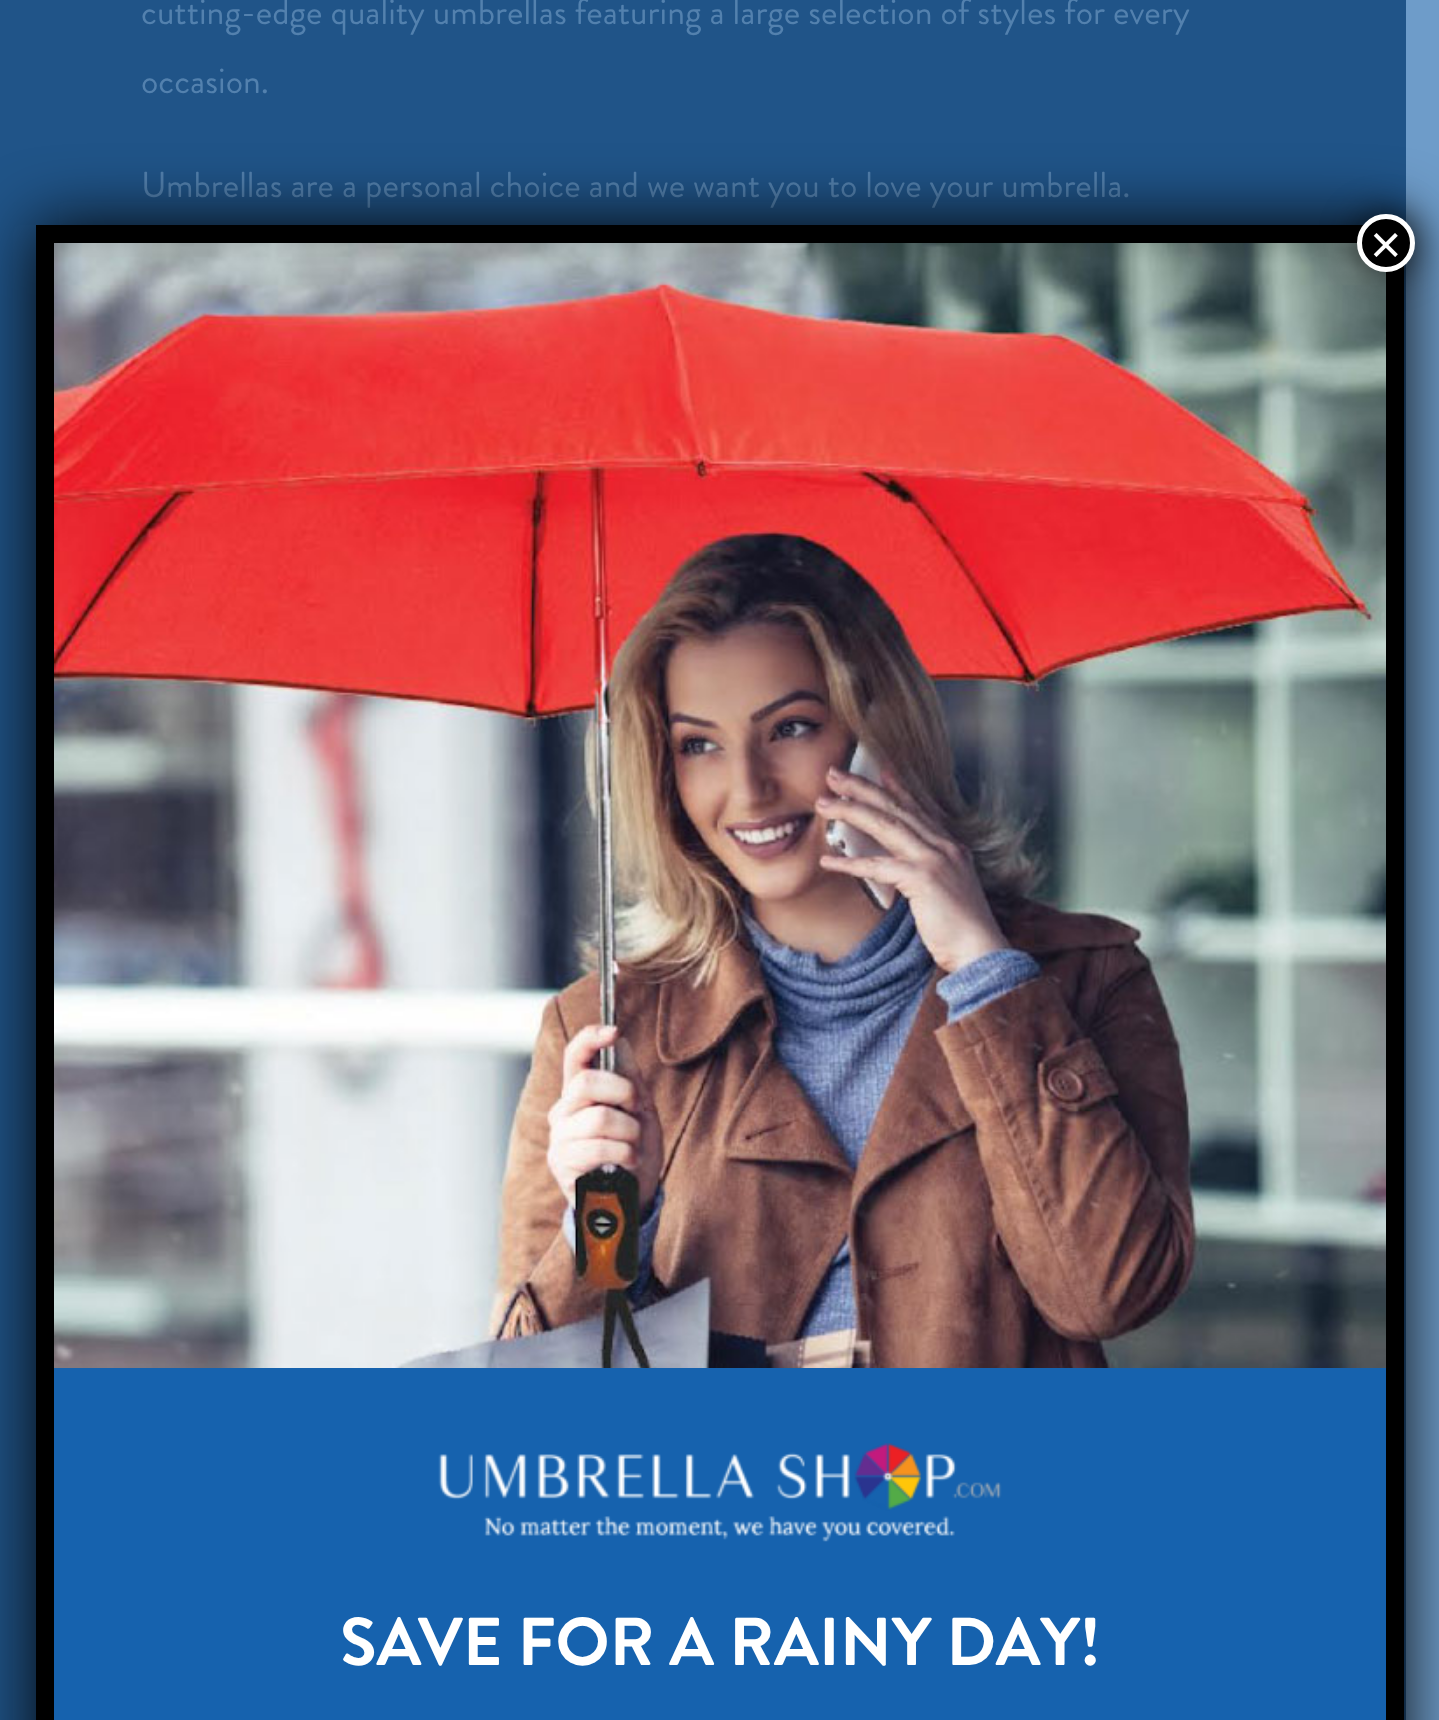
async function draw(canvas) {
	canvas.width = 1439;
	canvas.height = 1720;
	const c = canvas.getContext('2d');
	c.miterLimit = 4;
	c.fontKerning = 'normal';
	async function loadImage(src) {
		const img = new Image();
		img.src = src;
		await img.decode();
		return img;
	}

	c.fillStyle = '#6e9cc9';
	c.fillRect(0, 0, 1439, 1720);
	c.fillStyle = '#205488';
	c.fillRect(0, 0, 1406, 1720);
	c.font = '36px Brandon Grotesque';
	c.fillStyle = '#5381ae';
	for (const [text, x, y] of [
		['cutting-edge quality umbrellas featuring a large selection of styles for every', 141, 24],
		['occasion.', 141, 93],
		['Umbrellas are a personal choice and we want you to love your umbrella.', 141, 197],
	]) {
		c.fillText(text, x, y);
	}
	c.fillStyle = '#020202';
	c.filter = 'blur(34px)';
	c.beginPath();
	c.roundRect(36, 225, 1368, 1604, 7);
	c.fill();
	c.filter = 'none';
	c.fillStyle = '#1662ae';
	c.fillRect(54, 1368, 1332, 352);
	c.beginPath();
	c.moveTo(45, 234);
	c.lineTo(1395, 234);
	c.lineTo(1395, 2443.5);
	c.lineTo(45, 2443.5);
	c.closePath();
	c.strokeStyle = '#000';
	c.lineWidth = 18;
	c.stroke();
	c.drawImage(await loadImage('img1.png'), 54, 243, 1332, 1125);
	c.fillStyle = '#020202bf';
	c.filter = 'blur(17px)';
	c.beginPath();
	c.roundRect(1355, 212, 63, 63, 31.5);
	c.fill();
	c.filter = 'none';
	c.fillStyle = '#000';
	c.beginPath();
	c.arc(1386, 243, 26.5, 0, 2 * Math.PI);
	c.fill();
	c.strokeStyle = '#fff';
	c.lineWidth = 5;
	c.stroke();
	c.font = '54px Liberation Sans';
	c.fillStyle = '#fff';
	c.fillText('×', 1370, 263);
	c.drawImage(await loadImage('img2.png'), 438, 1443, 564, 99);
	c.font = 'bold 67.5px Brandon Grotesque';
	c.fillText('SAVE FOR A RAINY DAY!', 340, 1665);
}

draw(document.querySelector('canvas'));
